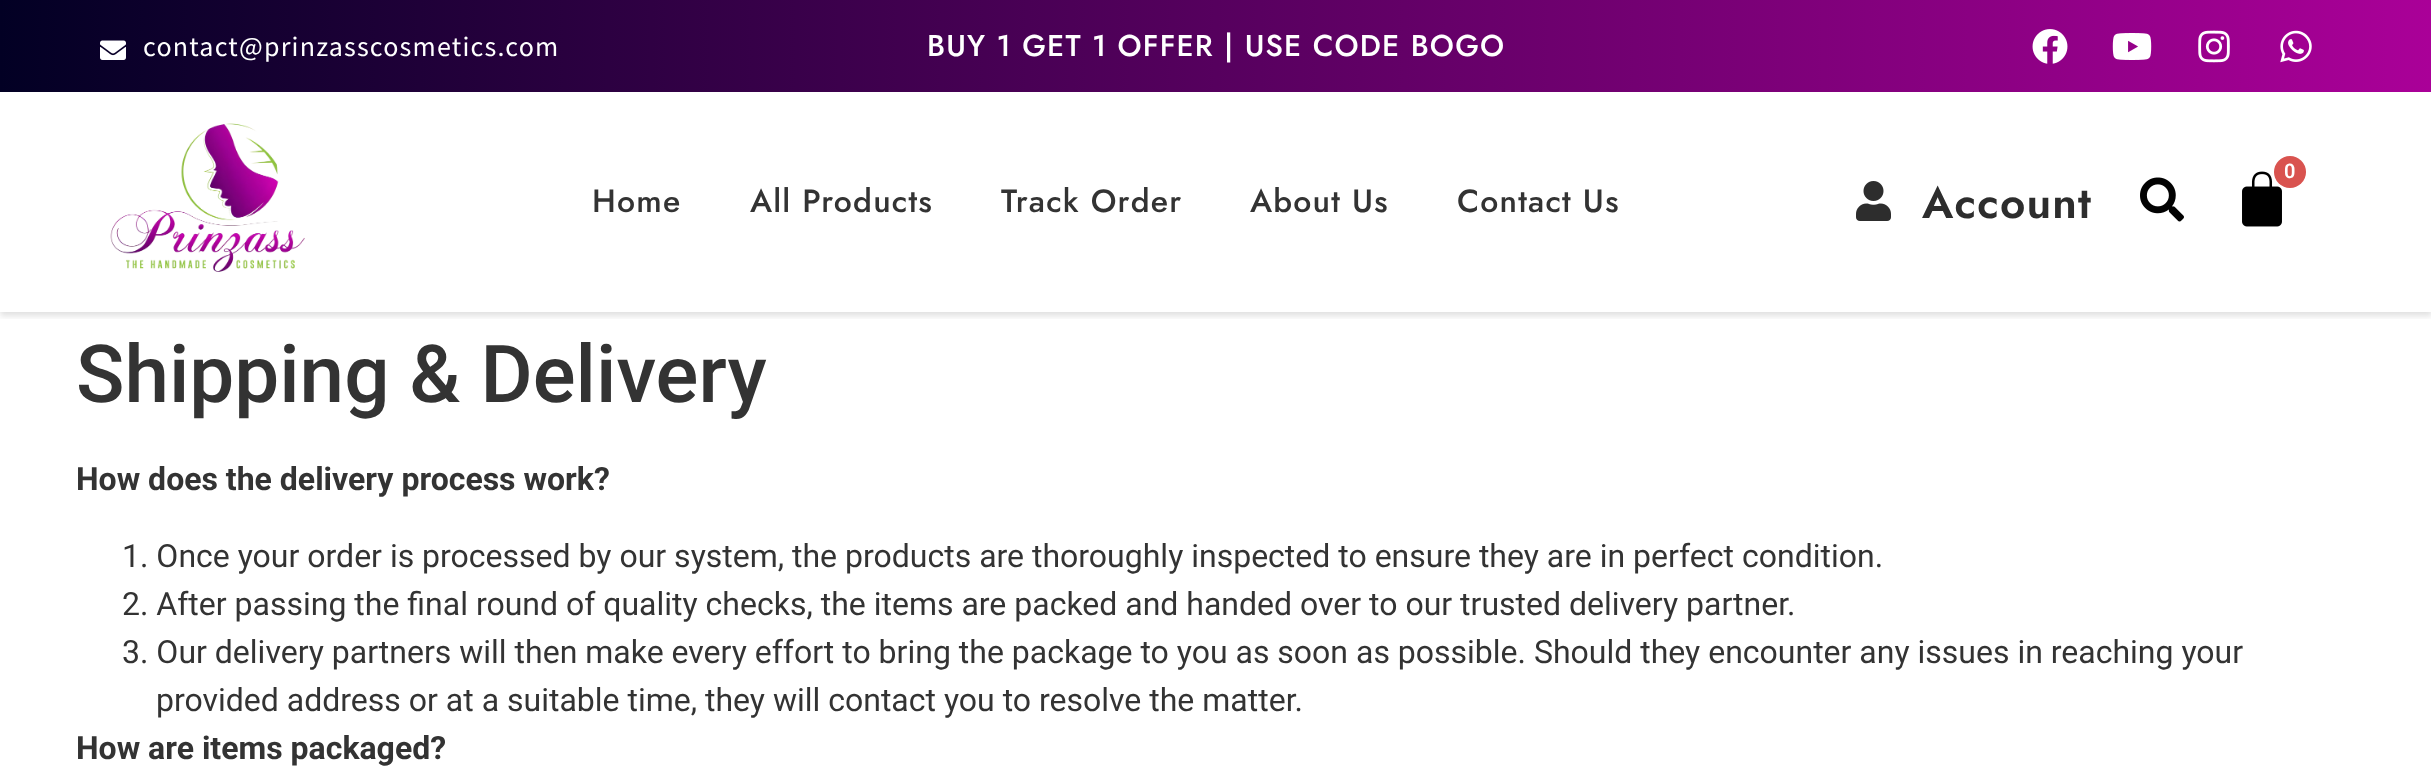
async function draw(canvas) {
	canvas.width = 2431;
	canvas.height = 770;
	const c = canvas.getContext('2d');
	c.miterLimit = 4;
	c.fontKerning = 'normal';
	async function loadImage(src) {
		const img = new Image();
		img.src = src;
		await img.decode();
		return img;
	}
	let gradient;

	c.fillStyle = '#fff';
	c.fillRect(0, 0, 2431, 770);
	gradient = c.createLinearGradient(0, 46, 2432, 46);
	gradient.addColorStop(0, '#020024');
	gradient.addColorStop(1, '#aa0098');
	gradient.addColorStop(1, '#6d0070');
	c.fillStyle = gradient;
	c.fillRect(0, 0, 2431, 92);
	c.drawImage(await loadImage('img1.png'), 100, 40, 26, 20);
	c.letterSpacing = '1.2px';
	c.font = '28px Source Sans Pro';
	c.fillStyle = '#fff';
	c.fillText('contact@prinzasscosmetics.com', 143, 56);
	c.font = '500 30px Jost';
	c.fillText('BUY 1 GET 1 OFFER | USE CODE BOGO', 927, 56);
	c.drawImage(await loadImage('img2.png'), 2032, 29, 36, 35);
	c.drawImage(await loadImage('img3.png'), 2112, 33, 40, 27);
	c.drawImage(await loadImage('img4.png'), 2198, 30, 32, 33);
	c.drawImage(await loadImage('img5.png'), 2280, 30, 32, 33);
	c.save();
	c.beginPath();
	c.rect(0, 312, 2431, 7);
	c.clip();
	c.fillStyle = '#0000001f';
	c.filter = 'blur(3px)';
	c.beginPath();
	c.rect(0, 96, 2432, 220);
	c.fill();
	c.filter = 'none';
	c.restore();
	c.drawImage(await loadImage('img6.png'), 110, 123, 195, 149);
	c.font = '500 32px Jost';
	c.fillStyle = '#333';
	for (const [text, x, y] of [
		['Home', 592, 212],
		['All Products', 750, 212],
		['Track Order', 1001, 212],
		['About Us', 1250, 212],
		['Contact Us', 1457, 212],
	]) {
		c.fillText(text, x, y);
	}
	c.drawImage(await loadImage('img7.png'), 2242, 171, 40, 56);
	c.fillStyle = '#d9534f';
	c.beginPath();
	c.arc(2290, 172, 16, 0, 2 * Math.PI);
	c.fill();
	c.letterSpacing = '0px';
	c.font = '600 20px Roboto';
	c.fillStyle = '#fff';
	c.fillText('0', 2284, 178);
	c.drawImage(await loadImage('img8.png'), 1856, 181, 35, 40);
	c.letterSpacing = '1.2px';
	c.font = '600 44px Jost';
	c.fillStyle = '#2d2d2d';
	c.fillText('Account', 1922, 218);
	c.drawImage(await loadImage('img9.png'), 2140, 177, 44, 45);
	c.letterSpacing = '0px';
	c.font = '500 80px Roboto';
	c.fillStyle = '#333';
	c.fillText('Shipping & Delivery', 76, 402);
	c.font = 'bold 32px Roboto';
	c.fillText('How does the delivery process work?', 76, 490);
	c.font = '32px Roboto';
	for (const [text, x, y] of [
		['1. Once your order is processed by our system, the products are thoroughly inspected to ensure they are in perfect condition.', 122, 567],
		['2. After passing the final round of quality checks, the items are packed and handed over to our trusted delivery partner.', 122, 615],
		['3. Our delivery partners will then make every effort to bring the package to you as soon as possible. Should they encounter any issues in reaching your', 122, 663],
		['provided address or at a suitable time, they will contact you to resolve the matter.', 156, 711],
	]) {
		c.fillText(text, x, y);
	}
	c.font = 'bold 32px Roboto';
	c.fillText('How are items packaged?', 76, 759);
}

draw(document.querySelector('canvas'));
